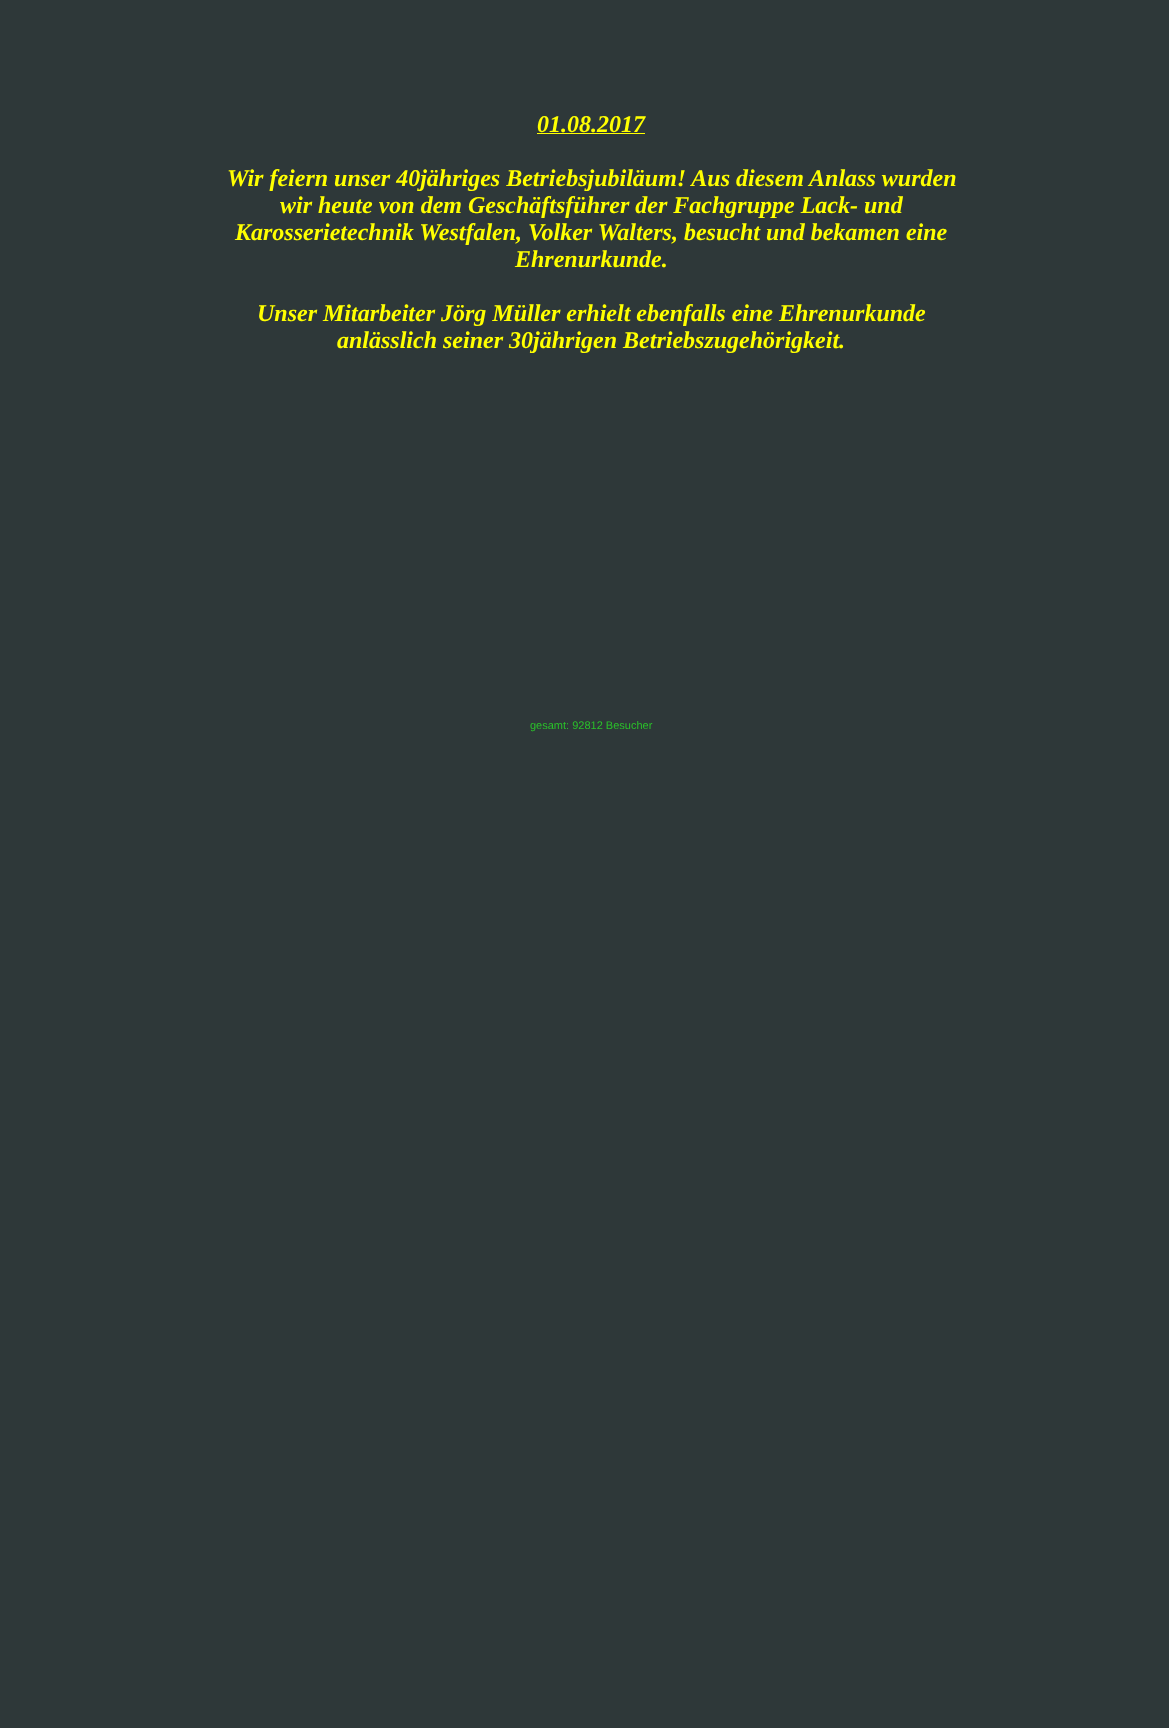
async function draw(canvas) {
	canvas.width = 1169;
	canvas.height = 1728;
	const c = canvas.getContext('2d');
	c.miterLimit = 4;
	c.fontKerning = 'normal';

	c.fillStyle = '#2e3839';
	c.fillRect(0, 0, 1169, 1728);
	c.font = 'italic bold 24px Liberation Serif';
	c.fillStyle = '#ff0';
	c.fillText('01.08.2017', 537, 132);
	c.fillRect(537, 133, 108, 1);
	for (const [text, x, y] of [
		['Wir feiern unser 40jähriges Betriebsjubiläum! Aus diesem Anlass wurden', 227, 186],
		['wir heute von dem Geschäftsführer der Fachgruppe Lack- und', 280, 213],
		['Karosserietechnik Westfalen, Volker Walters, besucht und bekamen eine', 235, 240],
		['Ehrenurkunde.', 515, 267],
		['Unser Mitarbeiter Jörg Müller erhielt ebenfalls eine Ehrenurkunde', 257, 321],
		['anlässlich seiner 30jährigen Betriebszugehörigkeit.', 337, 348],
	]) {
		c.fillText(text, x, y);
	}
	c.font = '11px Liberation Sans';
	c.fillStyle = '#2ac02a';
	c.fillText('gesamt: 92812 Besucher', 530, 729);
}

draw(document.querySelector('canvas'));
